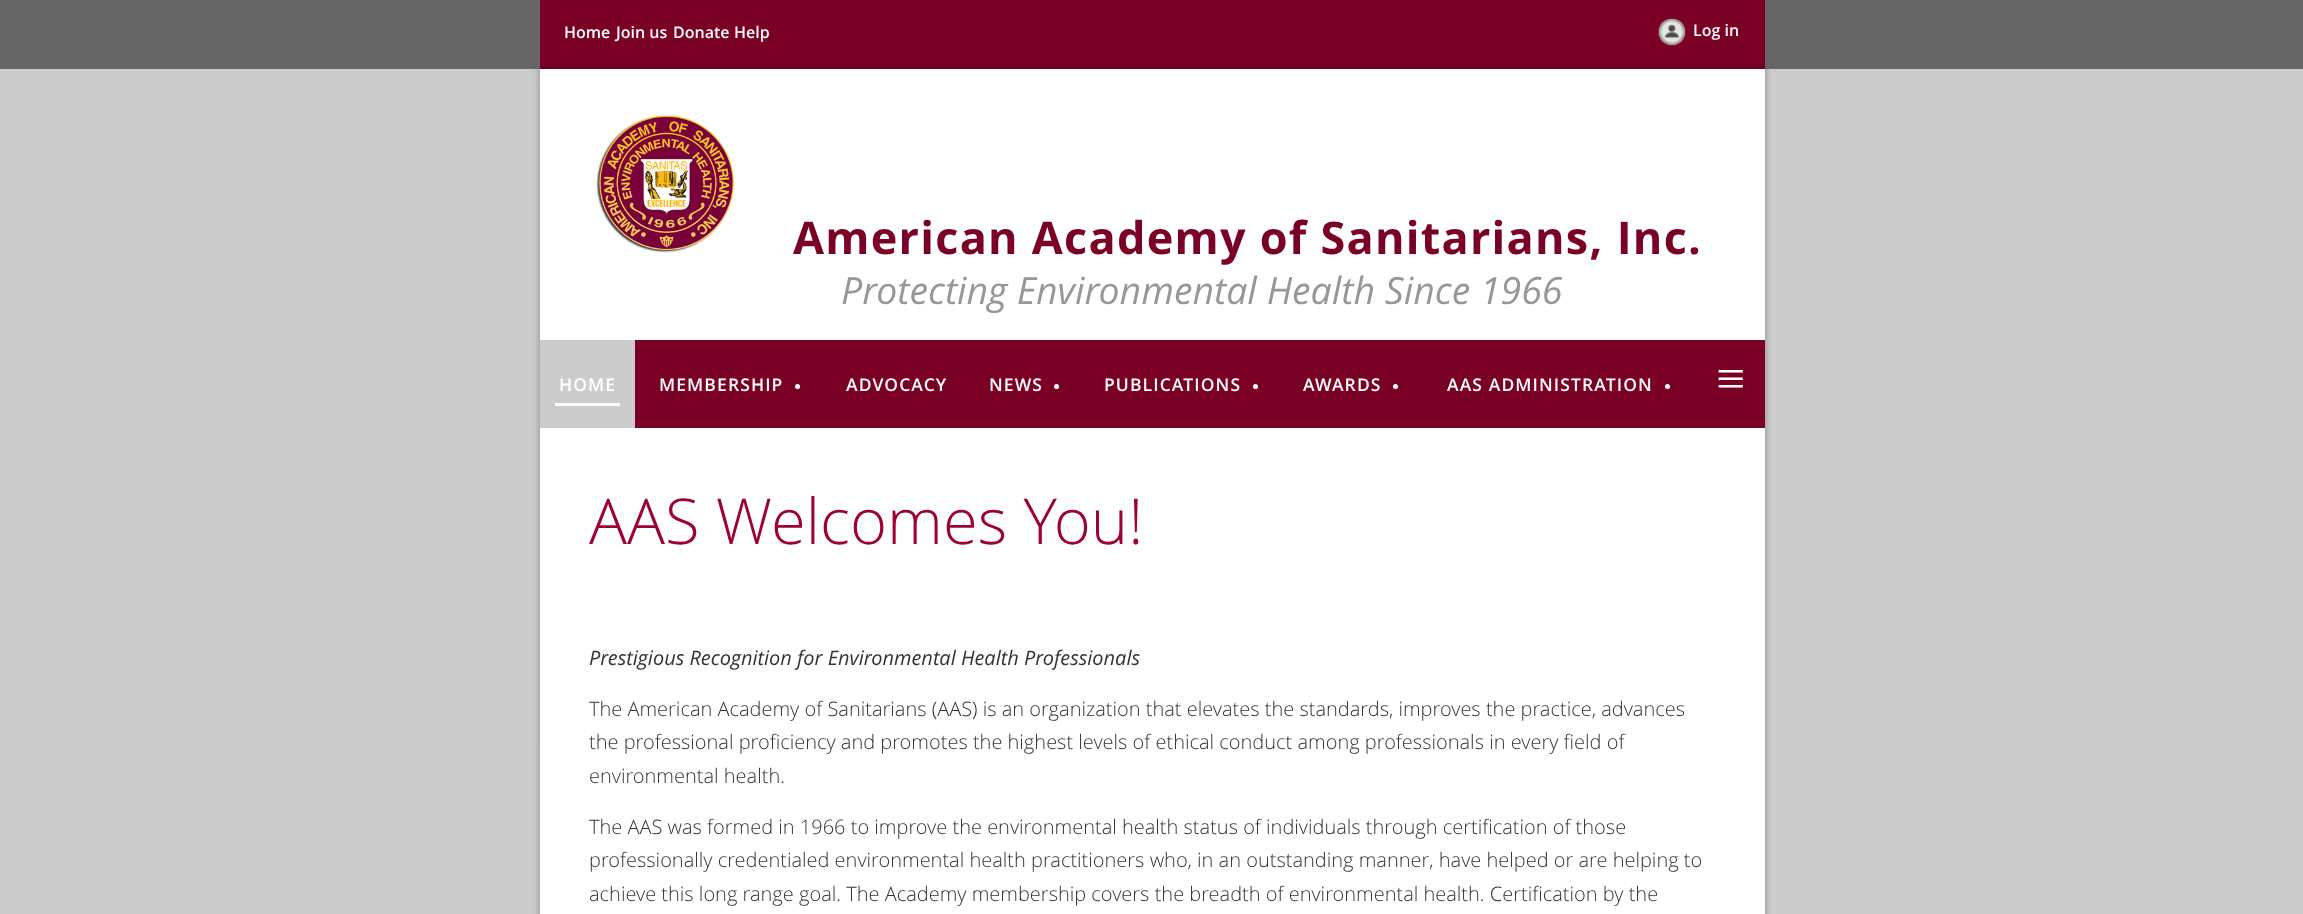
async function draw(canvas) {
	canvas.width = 2303;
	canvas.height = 914;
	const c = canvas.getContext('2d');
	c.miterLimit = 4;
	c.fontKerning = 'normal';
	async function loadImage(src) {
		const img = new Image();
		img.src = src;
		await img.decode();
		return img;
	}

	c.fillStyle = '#ccc';
	c.fillRect(0, 0, 2303, 914);
	c.fillStyle = '#666';
	c.fillRect(0, 0, 2303, 69);
	c.fillStyle = '#7a0026';
	c.fillRect(540, 0, 1225, 69);
	c.font = '600 16px Open Sans';
	c.fillStyle = '#fff';
	for (const [text, x, y] of [
		['Home', 564, 38],
		['Join us', 616, 38],
		['Donate', 673, 38],
		['Help', 734, 38],
	]) {
		c.fillText(text, x, y);
	}
	c.drawImage(await loadImage('img1.png'), 1658, 18, 28, 28);
	c.fillText('Log in', 1693, 36);
	c.drawImage(await loadImage('img2.png'), 539, 64, 1228, 5);
	c.drawImage(await loadImage('img3.png'), 546, 64, 1213, 5);
	c.drawImage(await loadImage('img4.png'), 532, 69, 1239, 359);
	c.fillRect(540, 69, 1225, 271);
	c.drawImage(await loadImage('img5.png'), 596, 115, 138, 138);
	c.letterSpacing = '1.25px';
	c.font = 'bold 45px Open Sans';
	c.fillStyle = '#7a0026';
	c.fillText('American Academy of Sanitarians, Inc.', 793, 254);
	c.letterSpacing = '0px';
	c.font = 'italic 37.5px Open Sans';
	c.fillStyle = '#979797';
	c.fillText('Protecting Environmental Health Since 1966', 841, 304);
	c.drawImage(await loadImage('img6.png'), 532, 427, 1239, 487);
	for (const [x, y, w, h, color] of [
		[635, 340, 1130, 88, '#7a0026'],
		[540, 340, 1, 88, '#ccc'],
		[555, 403, 65, 3, '#fff'],
	]) {
		c.fillStyle = color;
		c.fillRect(x, y, w, h);
	}
	c.letterSpacing = '1.1px';
	c.font = '600 17.5px Open Sans';
	c.fillText('HOME', 559, 391);
	c.fillText('MEMBERSHIP', 659, 391);
	c.beginPath();
	c.arc(797.5, 386.5, 2.5, 0, 2 * Math.PI);
	c.fill();
	c.fillText('ADVOCACY', 846, 391);
	c.fillText('NEWS', 989, 391);
	c.beginPath();
	c.arc(1056.5, 386.5, 2.5, 0, 2 * Math.PI);
	c.fill();
	c.fillText('PUBLICATIONS', 1104, 391);
	c.beginPath();
	c.arc(1255.5, 386.5, 2.5, 0, 2 * Math.PI);
	c.fill();
	c.fillText('AWARDS', 1303, 391);
	c.beginPath();
	c.arc(1395.5, 386.5, 2.5, 0, 2 * Math.PI);
	c.fill();
	c.fillText('AAS ADMINISTRATION', 1447, 391);
	c.beginPath();
	c.arc(1667.5, 386.5, 2.5, 0, 2 * Math.PI);
	c.fill();
	c.font = '52px Liberation Serif';
	c.fillText('≡', 1716, 396);
	c.fillRect(540, 428, 1225, 486);
	c.letterSpacing = '0px';
	c.font = '300 63.25px Open Sans';
	c.fillStyle = '#9e0039';
	c.fillText('AAS Welcomes You!', 589, 544);
	c.font = 'italic 20px Open Sans';
	c.fillStyle = '#333';
	c.fillText('Prestigious Recognition for Environmental Health Professionals', 589, 665);
	c.font = '300 20px Open Sans';
	for (const [text, x, y] of [
		['The American Academy of Sanitarians (AAS) is an organization that elevates the standards, improves the practice, advances', 589, 716],
		['the professional proficiency and promotes the highest levels of ethical conduct among professionals in every field of', 589, 749],
		['environmental health.', 589, 783],
		['The AAS was formed in 1966 to improve the environmental health status of individuals through certification of those', 589, 834],
		['professionally credentialed environmental health practitioners who, in an outstanding manner, have helped or are helping to', 589, 867],
		['achieve this long range goal. The Academy membership covers the breadth of environmental health. Certification by the', 589, 901],
	]) {
		c.fillText(text, x, y);
	}
}

draw(document.querySelector('canvas'));
